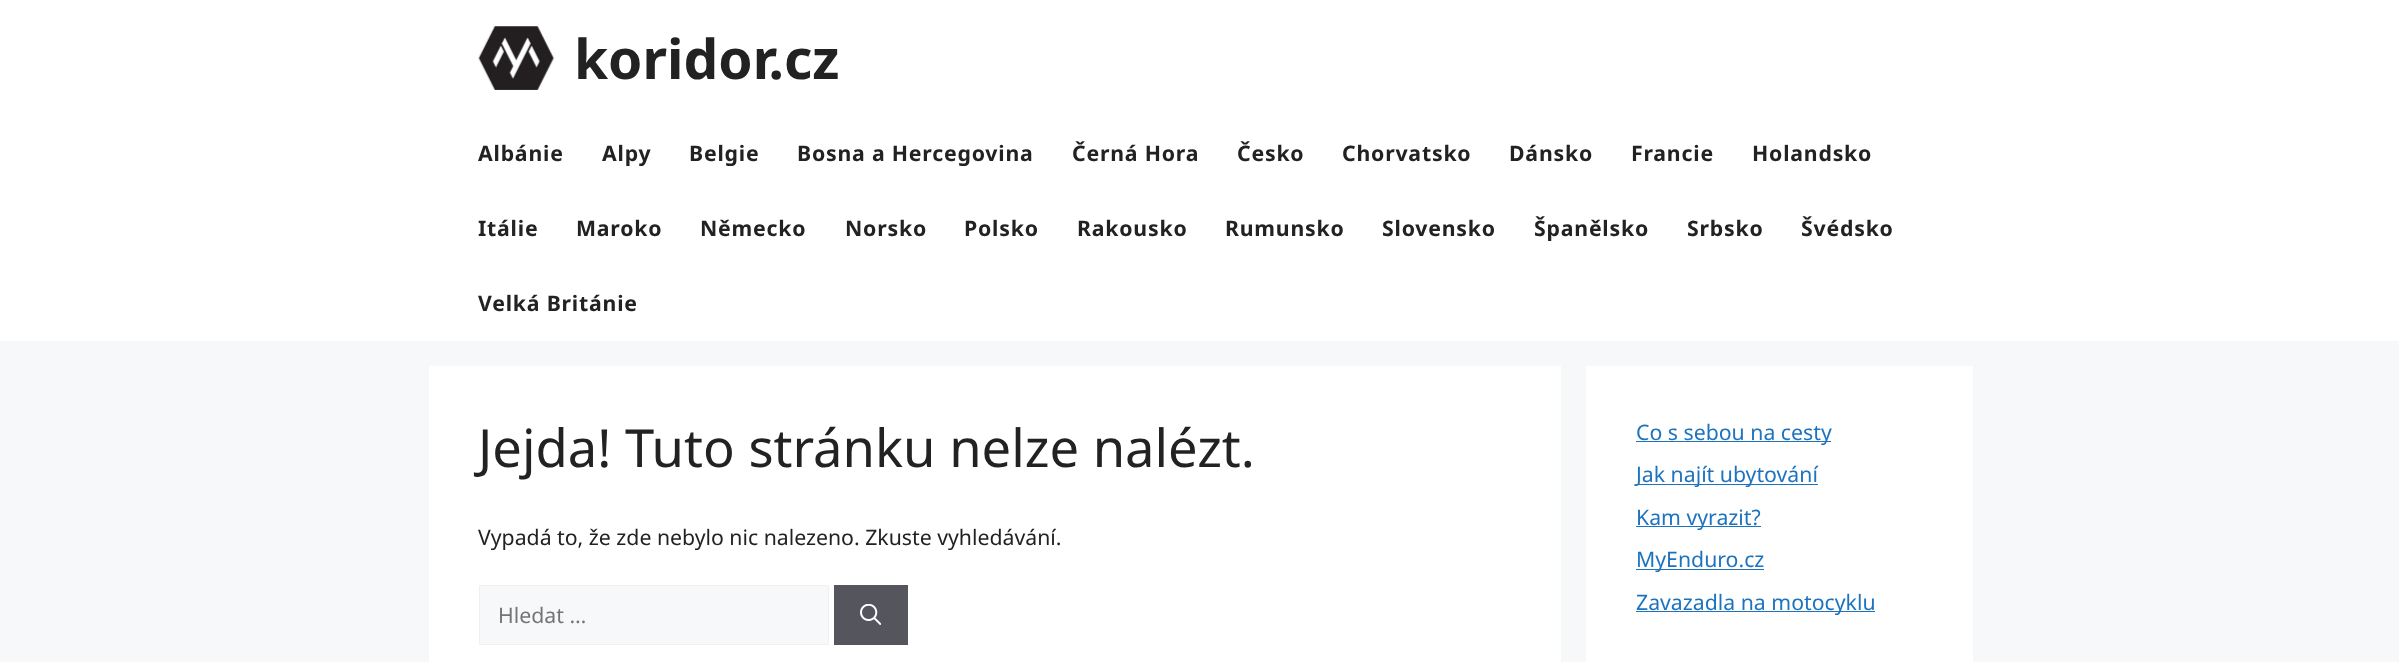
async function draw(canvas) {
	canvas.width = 2399;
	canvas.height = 662;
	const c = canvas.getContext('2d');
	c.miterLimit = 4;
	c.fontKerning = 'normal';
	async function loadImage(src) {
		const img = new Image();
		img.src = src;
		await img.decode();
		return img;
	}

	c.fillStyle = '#f7f8f9';
	c.fillRect(0, 0, 2399, 662);
	c.fillStyle = '#fff';
	c.fillRect(0, 0, 2399, 341);
	c.drawImage(await loadImage('img1.png'), 478, 26, 76, 64);
	c.font = 'bold 55px Noto Sans';
	c.fillStyle = '#222';
	c.fillText('koridor.cz', 574, 79);
	c.letterSpacing = '0.8px';
	c.font = 'bold 21.25px Noto Sans';
	for (const [text, x, y] of [
		['Albánie', 478, 161],
		['Alpy', 602, 161],
		['Belgie', 689, 161],
		['Bosna a Hercegovina', 797, 161],
		['Černá Hora', 1072, 161],
		['Česko', 1237, 161],
		['Chorvatsko', 1342, 161],
		['Dánsko', 1509, 161],
		['Francie', 1631, 161],
		['Holandsko', 1752, 161],
		['Itálie', 478, 236],
		['Maroko', 576, 236],
		['Německo', 700, 236],
		['Norsko', 845, 236],
		['Polsko', 964, 236],
		['Rakousko', 1077, 236],
		['Rumunsko', 1225, 236],
		['Slovensko', 1382, 236],
		['Španělsko', 1534, 236],
		['Srbsko', 1687, 236],
		['Švédsko', 1801, 236],
		['Velká Británie', 478, 311],
	]) {
		c.fillText(text, x, y);
	}
	c.fillStyle = '#fff';
	c.fillRect(429, 366, 1132, 296);
	c.letterSpacing = '0px';
	c.font = '52.5px Noto Sans';
	c.fillStyle = '#222';
	c.fillText('Jejda! Tuto stránku nelze nalézt.', 478, 467);
	c.font = '21.25px Noto Sans';
	c.fillText('Vypadá to, že zde nebylo nic nalezeno. Zkuste vyhledávání.', 478, 545);
	c.fillStyle = '#f7f8f9';
	c.beginPath();
	c.rect(479.5, 585.5, 349, 59);
	c.fill();
	c.strokeStyle = '#f0f0f0';
	c.stroke();
	c.fillStyle = '#757575';
	c.fillText('Hledat …', 498, 623);
	c.fillStyle = '#55555e';
	c.fillRect(834, 585, 74, 60);
	c.drawImage(await loadImage('img2.png'), 860, 604, 21, 21);
	c.fillStyle = '#fff';
	c.fillRect(1586, 366, 387, 296);
	c.fillStyle = '#1e73be';
	c.fillRect(1636, 441, 195, 1);
	c.fillText('Co s sebou na cesty', 1636, 440);
	c.fillRect(1636, 484, 182, 1);
	c.fillText('Jak najít ubytování', 1636, 482);
	c.fillRect(1636, 526, 125, 1);
	c.fillText('Kam vyrazit?', 1636, 525);
	c.fillRect(1636, 569, 128, 1);
	c.fillText('MyEnduro.cz', 1636, 567);
	c.fillRect(1636, 611, 239, 1);
	c.fillText('Zavazadla na motocyklu', 1636, 610);
}

draw(document.querySelector('canvas'));
